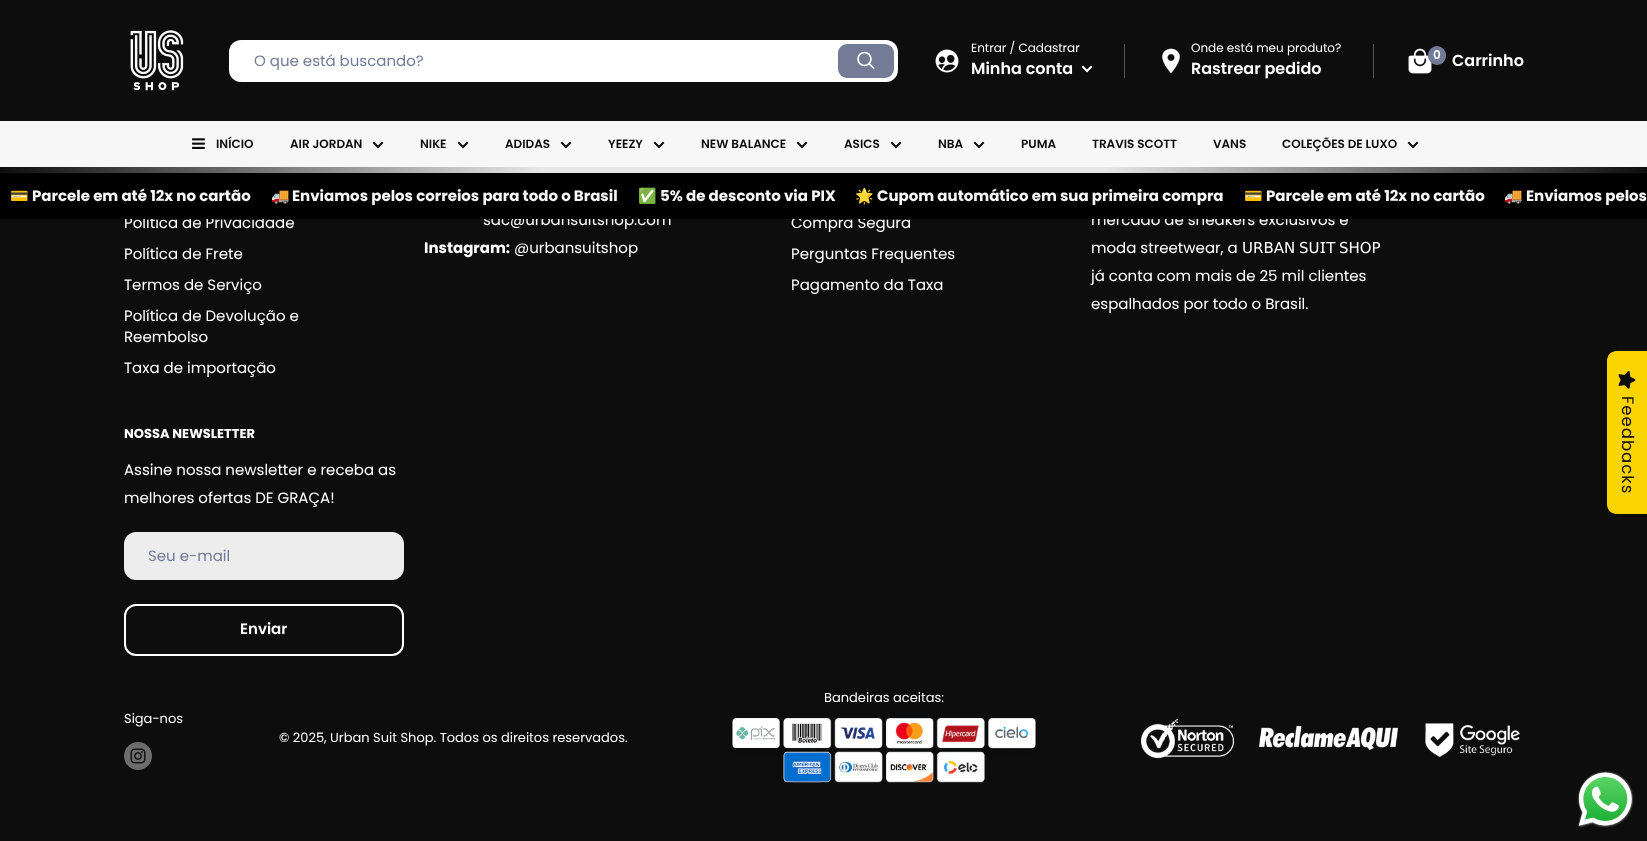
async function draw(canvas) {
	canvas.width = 1647;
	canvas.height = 841;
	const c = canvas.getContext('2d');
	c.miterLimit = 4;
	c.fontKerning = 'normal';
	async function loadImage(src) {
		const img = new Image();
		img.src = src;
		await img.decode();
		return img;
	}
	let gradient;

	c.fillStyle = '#0d0d0d';
	c.fillRect(0, 0, 1647, 841);
	c.drawImage(await loadImage('img1.png'), 130, 29, 54, 62);
	c.fillStyle = '#fff';
	c.beginPath();
	c.roundRect(229, 40, 669, 42, 12);
	c.fill();
	c.font = '15px Poppins';
	c.fillStyle = '#737b97';
	c.fillText('O que está buscando?', 254, 66);
	c.beginPath();
	c.roundRect(838, 44, 56, 34, 9);
	c.fill();
	c.beginPath();
	c.moveTo(873.5, 68);
	c.lineTo(869, 63.5);
	c.strokeStyle = '#fff';
	c.lineWidth = 1.7;
	c.lineCap = 'square';
	c.stroke();
	c.beginPath();
	c.arc(864.5, 59, 6.5, 0, 2 * Math.PI);
	c.stroke();
	c.drawImage(await loadImage('img2.png'), 935, 49, 24, 24);
	c.font = '12px Poppins';
	c.fillStyle = '#fff';
	c.fillText('Entrar / Cadastrar', 971, 52);
	c.font = '600 16px Poppins';
	c.fillText('Minha conta', 971, 74);
	c.beginPath();
	c.moveTo(1091, 67);
	c.lineTo(1087, 71);
	c.lineTo(1083, 67);
	c.lineWidth = 2;
	c.stroke();
	c.fillStyle = '#565656';
	c.fillRect(1124, 44, 1, 34);
	c.drawImage(await loadImage('img3.png'), 1162, 48, 18, 26);
	c.font = '12px Poppins';
	c.fillStyle = '#fff';
	c.fillText('Onde está meu produto?', 1191, 52);
	c.font = '600 16px Poppins';
	c.fillText('Rastrear pedido', 1191, 74);
	c.fillStyle = '#565656';
	c.fillRect(1373, 44, 1, 34);
	c.drawImage(await loadImage('img4.png'), 1408, 48, 24, 26);
	c.fillStyle = '#737b97';
	c.beginPath();
	c.roundRect(1428, 46, 18, 19, 9);
	c.fill();
	c.font = '600 12px Poppins';
	c.fillStyle = '#fff';
	c.fillText('0', 1433, 59);
	c.font = '600 16px Poppins';
	c.fillText('Carrinho', 1452, 66);
	c.fillStyle = '#f7f7f7';
	c.fillRect(0, 121, 1647, 46);
	c.drawImage(await loadImage('img5.png'), 192, 138, 13, 11);
	c.font = '600 12px Poppins';
	c.fillStyle = '#0d0d0d';
	c.fillText('INÍCIO', 216, 148);
	c.fillText('AIR JORDAN', 290, 148);
	c.beginPath();
	c.moveTo(382, 143);
	c.lineTo(378, 147);
	c.lineTo(374, 143);
	c.strokeStyle = '#0d0d0d';
	c.stroke();
	c.fillText('NIKE', 420, 148);
	c.beginPath();
	c.moveTo(467, 143);
	c.lineTo(463, 147);
	c.lineTo(459, 143);
	c.stroke();
	c.fillText('ADIDAS', 505, 148);
	c.beginPath();
	c.moveTo(570, 143);
	c.lineTo(566, 147);
	c.lineTo(562, 143);
	c.stroke();
	c.fillText('YEEZY', 608, 148);
	c.beginPath();
	c.moveTo(663, 143);
	c.lineTo(659, 147);
	c.lineTo(655, 143);
	c.stroke();
	c.fillText('NEW BALANCE', 701, 148);
	c.beginPath();
	c.moveTo(806, 143);
	c.lineTo(802, 147);
	c.lineTo(798, 143);
	c.stroke();
	c.fillText('ASICS', 844, 148);
	c.beginPath();
	c.moveTo(900, 143);
	c.lineTo(896, 147);
	c.lineTo(892, 143);
	c.stroke();
	c.fillText('NBA', 938, 148);
	c.beginPath();
	c.moveTo(983, 143);
	c.lineTo(979, 147);
	c.lineTo(975, 143);
	c.stroke();
	for (const [text, x, y] of [
		['PUMA', 1021, 148],
		['TRAVIS SCOTT', 1092, 148],
		['VANS', 1213, 148],
		['COLEÇÕES DE LUXO', 1282, 148],
	]) {
		c.fillText(text, x, y);
	}
	c.beginPath();
	c.moveTo(1417, 143);
	c.lineTo(1413, 147);
	c.lineTo(1409, 143);
	c.stroke();
	gradient = c.createLinearGradient(0, 170, 1647, 170);
	gradient.addColorStop(0, '#0d0d0d');
	gradient.addColorStop(0.33, '#e7e7e7');
	gradient.addColorStop(0.67, '#e7e7e7');
	gradient.addColorStop(1, '#0d0d0d');
	c.fillStyle = gradient;
	c.fillRect(0, 167, 1647, 6);
	c.font = '15px Poppins';
	c.fillStyle = '#fff';
	for (const [text, x, y] of [
		['Política de Privacidade', 124, 228],
		['sac@urbansuitshop.com', 483, 225],
		['Compra Segura', 791, 228],
		['mercado de sneakers exclusivos e', 1091, 225],
	]) {
		c.fillText(text, x, y);
	}
	c.fillStyle = '#000';
	c.fillRect(0, 173, 1647, 46);
	c.font = 'bold 15px Noto Color Emoji';
	c.fillStyle = '#f7f7f7';
	c.fillText('💳', 10, 201);
	c.font = 'bold 15px Poppins';
	c.fillText('Parcele em até 12x no cartão', 32, 201);
	c.font = 'bold 15px Noto Color Emoji';
	c.fillText('🚚', 271, 201);
	c.font = 'bold 15px Poppins';
	c.fillText('Enviamos pelos correios para todo o Brasil', 292, 201);
	c.font = 'bold 15px Noto Color Emoji';
	c.fillText('✅', 638, 201);
	c.font = 'bold 15px Poppins';
	c.fillText('5% de desconto via PIX', 660, 201);
	c.font = 'bold 15px Noto Color Emoji';
	c.fillText('🌟', 855, 201);
	c.font = 'bold 15px Poppins';
	c.fillText('Cupom automático em sua primeira compra', 877, 201);
	c.font = 'bold 15px Noto Color Emoji';
	c.fillText('💳', 1244, 201);
	c.font = 'bold 15px Poppins';
	c.fillText('Parcele em até 12x no cartão', 1266, 201);
	c.font = 'bold 15px Noto Color Emoji';
	c.fillText('🚚', 1504, 201);
	c.font = 'bold 15px Poppins';
	c.fillText('Enviamos pelos', 1526, 201);
	c.font = '15px Poppins';
	c.fillStyle = '#fff';
	for (const [text, x, y] of [
		['Política de Frete', 124, 259],
		['Termos de Serviço', 124, 290],
		['Política de Devolução e', 124, 321],
		['Reembolso', 124, 342],
		['Taxa de importação', 124, 373],
	]) {
		c.fillText(text, x, y);
	}
	c.font = 'bold 15px Poppins';
	c.fillText('Instagram:', 424, 253);
	c.font = '15px Poppins';
	for (const [text, x, y] of [
		['@urbansuitshop', 514, 253],
		['Perguntas Frequentes', 791, 259],
		['Pagamento da Taxa', 791, 290],
		['moda streetwear, a', 1091, 253],
	]) {
		c.fillText(text, x, y);
	}
	c.font = '15px DejaVu Sans';
	for (const [text, x, y] of [
		['𝖴𝖱𝖡𝖠𝖭', 1242, 253],
		['𝖲𝖴𝖨𝖳', 1299, 253],
		['𝖲𝖧𝖮𝖯', 1339, 253],
	]) {
		c.fillText(text, x, y);
	}
	c.font = '15px Poppins';
	c.fillText('já conta com mais de 25 mil clientes', 1091, 281);
	c.fillText('espalhados por todo o Brasil.', 1091, 309);
	c.font = 'bold 13px Poppins';
	c.fillText('NOSSA NEWSLETTER', 124, 438);
	c.font = '15px Poppins';
	c.fillText('Assine nossa newsletter e receba as', 124, 475);
	c.fillText('melhores ofertas DE GRAÇA!', 124, 503);
	c.fillStyle = '#ededed';
	c.beginPath();
	c.roundRect(124, 532, 280, 48, 12);
	c.fill();
	c.fillStyle = '#737b97';
	c.fillText('Seu e-mail', 148, 561);
	c.beginPath();
	c.roundRect(125, 605, 278, 50, 11);
	c.strokeStyle = '#fff';
	c.stroke();
	c.font = '600 15px Poppins';
	c.fillStyle = '#fff';
	c.fillText('Enviar', 240, 634);
	c.font = '13px Poppins';
	c.fillText('Bandeiras aceitas:', 824, 702);
	c.drawImage(await loadImage('img6.png'), 732, 718, 304, 65);
	c.fillText('Siga-nos', 124, 723);
	c.drawImage(await loadImage('img7.png'), 124, 742, 28, 28);
	c.fillText('© 2025, Urban Suit Shop. Todos os direitos reservados.', 279, 742);
	c.drawImage(await loadImage('img8.png'), 1141, 719, 93, 40);
	c.drawImage(await loadImage('img9.png'), 1259, 726, 139, 24);
	c.drawImage(await loadImage('img10.png'), 1425, 723, 95, 34);
	c.fillStyle = '#fad400';
	c.beginPath();
	c.moveTo(1647, 351);
	c.lineTo(1647, 514);
	c.lineTo(1617, 514);
	c.bezierCurveTo(1611, 514, 1607, 510, 1607, 504);
	c.lineTo(1607, 361);
	c.bezierCurveTo(1607, 355, 1611, 351, 1617, 351);
	c.closePath();
	c.fill();
	c.drawImage(await loadImage('img11.png'), 1618, 371, 18, 18);
	c.letterSpacing = '1px';
	c.font = '16.5px Poppins';
	c.fillStyle = '#0d0d0d';
	c.save();
	c.translate(1622, 396);
	c.rotate(90 * Math.PI / 180);
	c.fillText('Feedbacks', 0, 0);
	c.restore();
	c.drawImage(await loadImage('img12.png'), 1577, 771, 57, 57);
}

draw(document.querySelector('canvas'));
